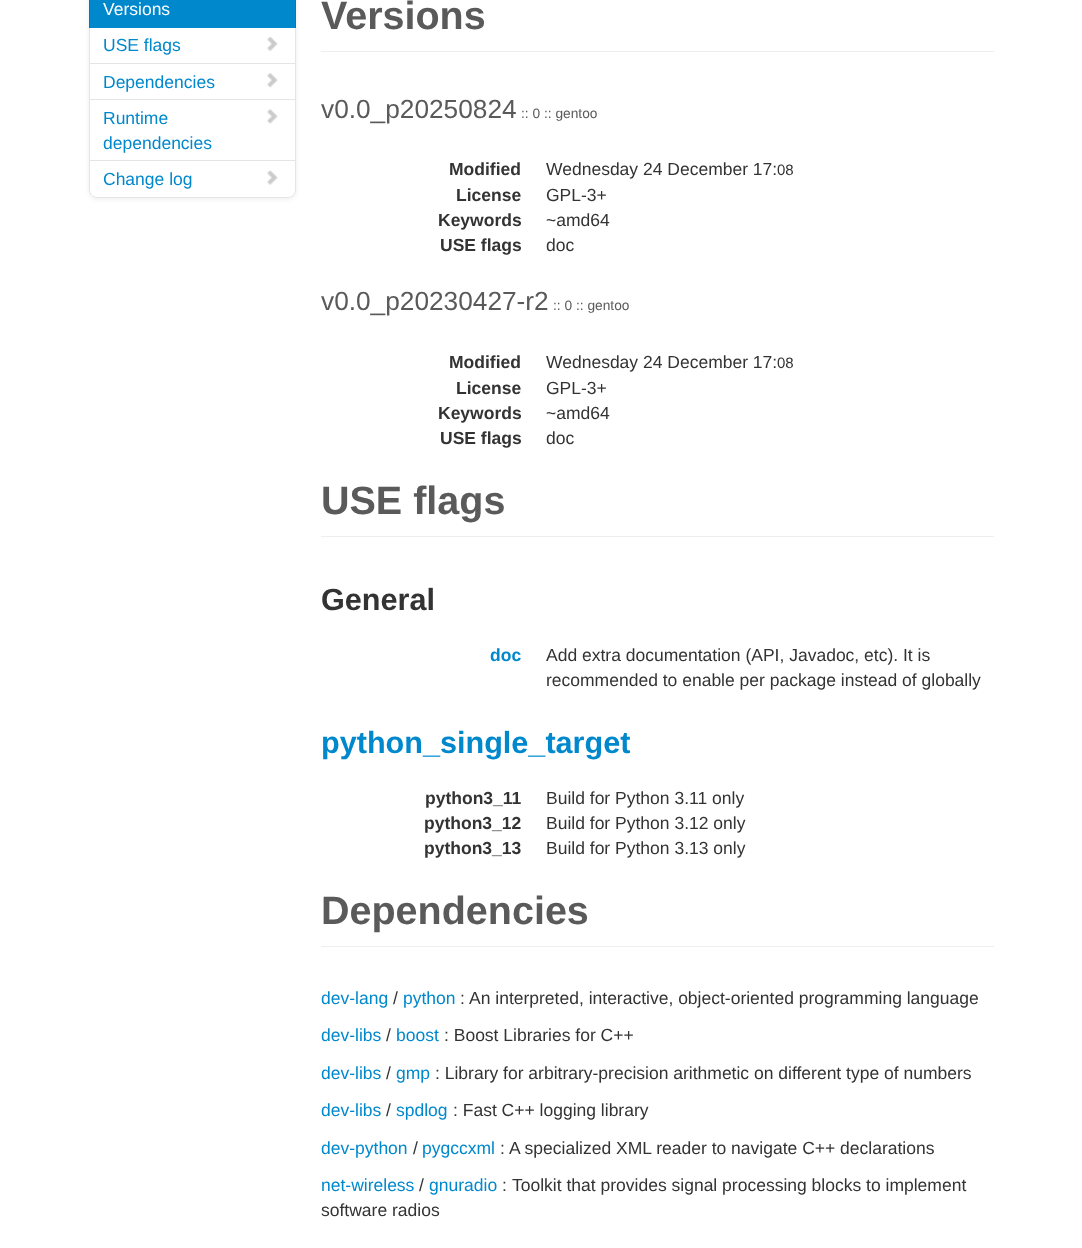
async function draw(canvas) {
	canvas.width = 1082;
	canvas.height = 1248;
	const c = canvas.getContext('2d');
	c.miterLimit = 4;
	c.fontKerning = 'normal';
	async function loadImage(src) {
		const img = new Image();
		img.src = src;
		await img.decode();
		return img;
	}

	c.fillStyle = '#fff';
	c.fillRect(0, 0, 1082, 1248);
	c.fillStyle = '#00000012';
	c.filter = 'blur(2.5px)';
	c.beginPath();
	c.roundRect(89, -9, 207, 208, 8);
	c.fill();
	c.filter = 'none';
	c.fillStyle = '#fff';
	c.beginPath();
	c.roundRect(89, -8, 207, 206, 8);
	c.fill();
	c.strokeStyle = '#e5e5e5';
	c.strokeRect(89.5, 26.5, 206, 37);
	c.fillStyle = '#08c';
	c.fillRect(90, 0, 205, 28);
	c.fillStyle = '#007ab8';
	c.beginPath();
	c.moveTo(295, 28);
	c.lineTo(296, 28);
	c.lineTo(296, -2);
	c.bezierCurveTo(296, -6.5, 292.5, -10, 288, -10);
	c.bezierCurveTo(292, -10, 295, -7, 295, -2);
	c.closePath();
	c.fill();
	c.beginPath();
	c.moveTo(97, -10);
	c.bezierCurveTo(92.5, -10, 89, -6.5, 89, -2);
	c.lineTo(89, 28);
	c.lineTo(90, 28);
	c.lineTo(90, -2);
	c.bezierCurveTo(90, -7, 93, -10, 98, -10);
	c.closePath();
	c.fill();
	c.font = '17.5px Liberation Sans';
	c.fillStyle = '#fff';
	c.fillText('Versions', 103, 15);
	c.fillStyle = '#08c';
	c.fillText('USE flags', 103, 51);
	c.drawImage(await loadImage('img1.png'), 267, 37, 11, 14);
	c.strokeRect(89.5, 63.5, 206, 36);
	c.fillText('Dependencies', 103, 88);
	c.drawImage(await loadImage('img2.png'), 267, 73, 11, 15);
	c.strokeRect(89.5, 99.5, 206, 61);
	c.fillText('Runtime', 103, 124);
	c.drawImage(await loadImage('img3.png'), 267, 109, 11, 15);
	c.fillText('dependencies', 103, 149);
	c.beginPath();
	c.roundRect(89.5, 160.5, 206, 37, [0, 0, 7.5, 7.5]);
	c.stroke();
	c.fillText('Change log', 103, 185);
	c.drawImage(await loadImage('img4.png'), 267, 170, 11, 15);
	c.fillStyle = '#eee';
	c.fillRect(321, 51, 673, 1);
	c.font = 'bold 39.5px Liberation Sans';
	c.fillStyle = '#5a5a5a';
	c.fillText('Versions', 321, 29);
	c.font = '26.25px Liberation Sans';
	c.fillText('v0.0_p20250824', 321, 118);
	c.font = '13.75px Liberation Sans';
	c.fillText(':: 0 :: gentoo', 521, 118);
	c.font = 'bold 17.5px Liberation Sans';
	c.fillStyle = '#333';
	c.fillText('Modified', 449, 175);
	c.font = '17.5px Liberation Sans';
	c.fillText('Wednesday 24 December 17:', 546, 175);
	c.font = '15px Liberation Sans';
	c.fillText('08', 777, 175);
	c.font = 'bold 17.5px Liberation Sans';
	c.fillText('License', 456, 201);
	c.font = '17.5px Liberation Sans';
	c.fillText('GPL-3+', 546, 201);
	c.font = 'bold 17.5px Liberation Sans';
	c.fillText('Keywords', 438, 226);
	c.font = '17.5px Liberation Sans';
	c.fillText('~amd64', 546, 226);
	c.font = 'bold 17.5px Liberation Sans';
	c.fillText('USE flags', 440, 251);
	c.font = '17.5px Liberation Sans';
	c.fillText('doc', 546, 251);
	c.font = '26.25px Liberation Sans';
	c.fillStyle = '#5a5a5a';
	c.fillText('v0.0_p20230427-r2', 321, 310);
	c.font = '13.75px Liberation Sans';
	c.fillText(':: 0 :: gentoo', 553, 310);
	c.font = 'bold 17.5px Liberation Sans';
	c.fillStyle = '#333';
	c.fillText('Modified', 449, 368);
	c.font = '17.5px Liberation Sans';
	c.fillText('Wednesday 24 December 17:', 546, 368);
	c.font = '15px Liberation Sans';
	c.fillText('08', 777, 368);
	c.font = 'bold 17.5px Liberation Sans';
	c.fillText('License', 456, 394);
	c.font = '17.5px Liberation Sans';
	c.fillText('GPL-3+', 546, 394);
	c.font = 'bold 17.5px Liberation Sans';
	c.fillText('Keywords', 438, 419);
	c.font = '17.5px Liberation Sans';
	c.fillText('~amd64', 546, 419);
	c.font = 'bold 17.5px Liberation Sans';
	c.fillText('USE flags', 440, 444);
	c.font = '17.5px Liberation Sans';
	c.fillText('doc', 546, 444);
	c.fillStyle = '#eee';
	c.fillRect(321, 536, 673, 1);
	c.font = 'bold 39.5px Liberation Sans';
	c.fillStyle = '#5a5a5a';
	c.fillText('USE flags', 321, 514);
	c.font = 'bold 30.6px Liberation Sans';
	c.fillStyle = '#333';
	c.fillText('General', 321, 610);
	c.font = 'bold 17.5px Liberation Sans';
	c.fillStyle = '#08c';
	c.fillText('doc', 490, 661);
	c.font = '17.5px Liberation Sans';
	c.fillStyle = '#333';
	c.fillText('Add extra documentation (API, Javadoc, etc). It is', 546, 661);
	c.fillText('recommended to enable per package instead of globally', 546, 686);
	c.font = 'bold 30.6px Liberation Sans';
	c.fillStyle = '#08c';
	c.fillText('python_single_target', 321, 753);
	c.font = 'bold 17.5px Liberation Sans';
	c.fillStyle = '#333';
	c.fillText('python3_11', 425, 804);
	c.font = '17.5px Liberation Sans';
	c.fillText('Build for Python 3.11 only', 546, 804);
	c.font = 'bold 17.5px Liberation Sans';
	c.fillText('python3_12', 424, 829);
	c.font = '17.5px Liberation Sans';
	c.fillText('Build for Python 3.12 only', 546, 829);
	c.font = 'bold 17.5px Liberation Sans';
	c.fillText('python3_13', 424, 854);
	c.font = '17.5px Liberation Sans';
	c.fillText('Build for Python 3.13 only', 546, 854);
	c.fillStyle = '#eee';
	c.fillRect(321, 946, 673, 1);
	c.font = 'bold 39.5px Liberation Sans';
	c.fillStyle = '#5a5a5a';
	c.fillText('Dependencies', 321, 924);
	c.font = '17.5px Liberation Sans';
	c.fillStyle = '#08c';
	c.fillText('dev-lang', 321, 1004);
	c.fillStyle = '#333';
	c.fillText('/', 393, 1004);
	c.fillStyle = '#08c';
	c.fillText('python', 403, 1004);
	c.fillStyle = '#333';
	c.fillText(':', 460, 1004);
	c.fillText('An interpreted, interactive, object-oriented programming language', 469, 1004);
	c.fillStyle = '#08c';
	c.fillText('dev-libs', 321, 1041);
	c.fillStyle = '#333';
	c.fillText('/', 386, 1041);
	c.fillStyle = '#08c';
	c.fillText('boost', 396, 1041);
	c.fillStyle = '#333';
	c.fillText(': Boost Libraries for C++', 444, 1041);
	c.fillStyle = '#08c';
	c.fillText('dev-libs', 321, 1079);
	c.fillStyle = '#333';
	c.fillText('/', 386, 1079);
	c.fillStyle = '#08c';
	c.fillText('gmp', 396, 1079);
	c.fillStyle = '#333';
	c.fillText(': Library for arbitrary-precision arithmetic on different type of numbers', 435, 1079);
	c.fillStyle = '#08c';
	c.fillText('dev-libs', 321, 1116);
	c.fillStyle = '#333';
	c.fillText('/', 386, 1116);
	c.fillStyle = '#08c';
	c.fillText('spdlog', 396, 1116);
	c.fillStyle = '#333';
	c.fillText(': Fast C++ logging library', 453, 1116);
	c.fillStyle = '#08c';
	c.fillText('dev-python', 321, 1154);
	c.fillStyle = '#333';
	c.fillText('/', 413, 1154);
	c.fillStyle = '#08c';
	c.fillText('pygccxml', 422, 1154);
	c.fillStyle = '#333';
	c.fillText(':', 500, 1154);
	c.fillText('A specialized XML reader to navigate C++ declarations', 509, 1154);
	c.fillStyle = '#08c';
	c.fillText('net-wireless', 321, 1191);
	c.fillStyle = '#333';
	c.fillText('/', 419, 1191);
	c.fillStyle = '#08c';
	c.fillText('gnuradio', 429, 1191);
	c.fillStyle = '#333';
	for (const [text, x, y] of [
		[':', 502, 1191],
		['Toolkit that provides signal processing blocks to implement', 512, 1191],
		['software radios', 321, 1216],
	]) {
		c.fillText(text, x, y);
	}
}

draw(document.querySelector('canvas'));
